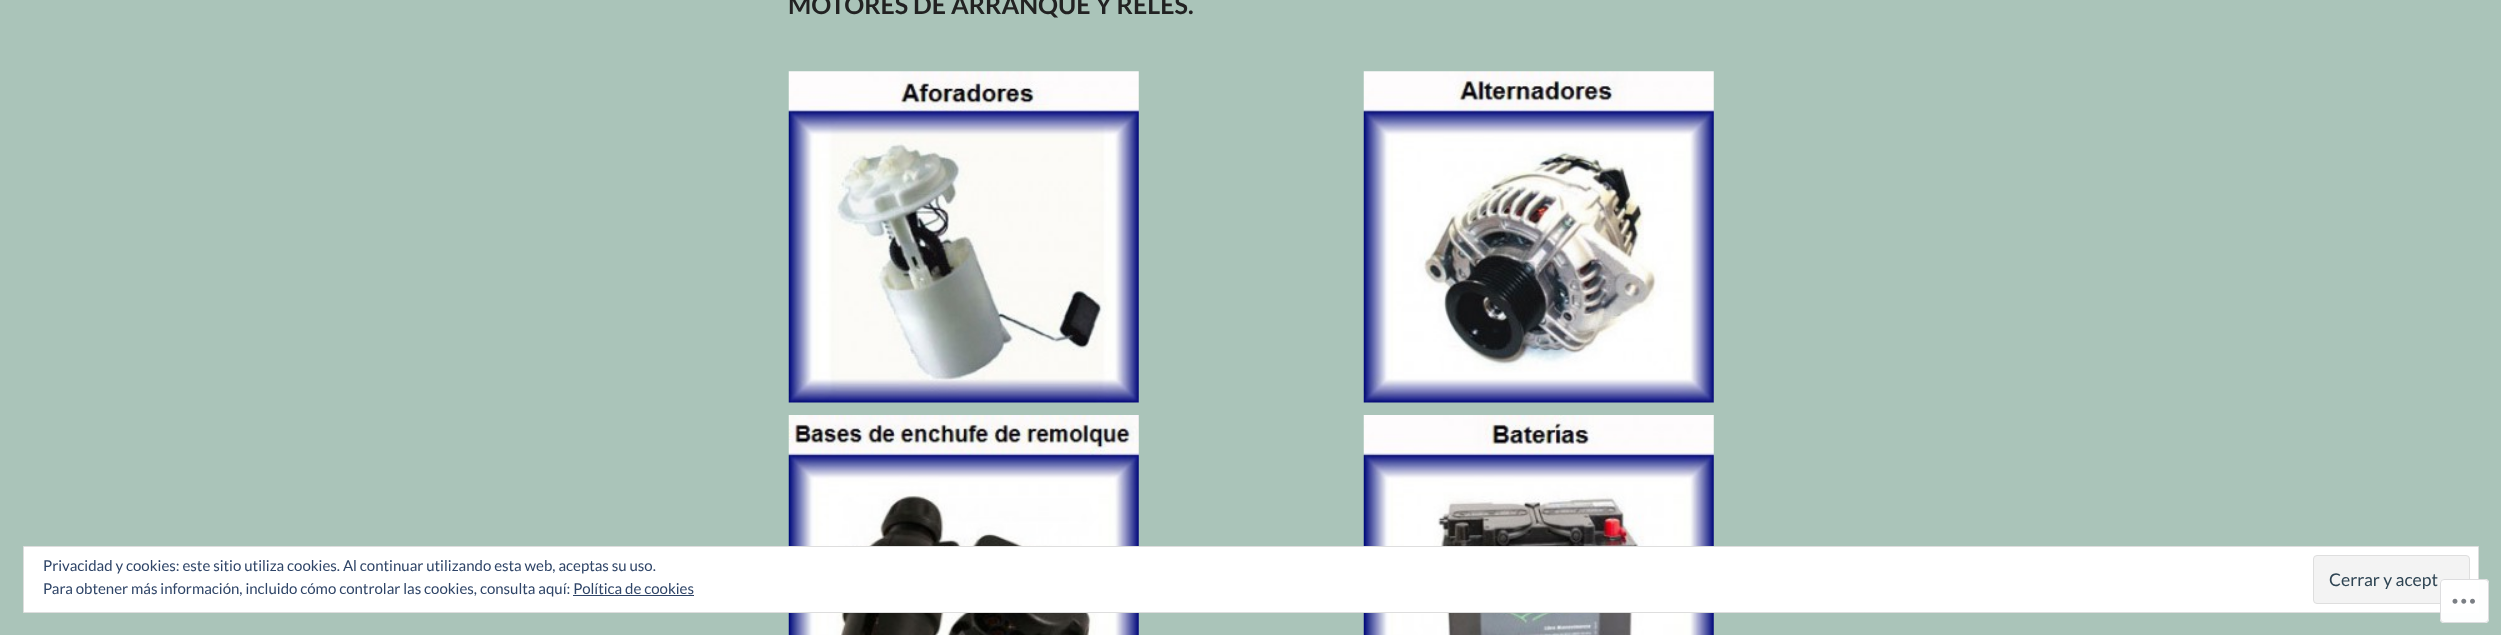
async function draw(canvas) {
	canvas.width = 2501;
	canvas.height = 635;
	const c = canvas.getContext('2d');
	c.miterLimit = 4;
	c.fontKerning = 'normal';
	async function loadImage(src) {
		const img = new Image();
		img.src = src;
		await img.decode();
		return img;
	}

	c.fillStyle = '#aac4b9';
	c.fillRect(0, 0, 2501, 635);
	c.font = 'bold 25px Lato';
	c.fillStyle = '#222';
	c.fillText('MOTORES DE ARRANQUE Y RELÉS.', 788, 14);
	c.drawImage(await loadImage('img1.png'), 788, 71, 351, 332);
	c.drawImage(await loadImage('img2.png'), 1363, 71, 351, 332);
	c.drawImage(await loadImage('img3.png'), 788, 415, 351, 220);
	c.drawImage(await loadImage('img4.png'), 1363, 415, 351, 220);
	c.fillStyle = '#fff';
	c.beginPath();
	c.rect(23.5, 546.5, 2455, 66);
	c.fill();
	c.strokeStyle = '#dedede';
	c.stroke();
	c.font = '15px Lato';
	c.fillStyle = '#2e4467';
	c.fillText('Privacidad y cookies: este sitio utiliza cookies. Al continuar utilizando esta web, aceptas su uso.', 43, 571);
	c.fillText('Para obtener más información, incluido cómo controlar las cookies, consulta aquí: Política de cookies', 43, 594);
	c.fillStyle = '#f3f3f3';
	c.beginPath();
	c.roundRect(2313.5, 555.5, 156, 48, 3.5);
	c.fill();
	c.stroke();
	c.font = '17.5px Lato';
	c.fillStyle = '#2e4453';
	c.fillText('Cerrar y acept', 2329, 586);
	c.fillStyle = '#2e4467';
	c.fillRect(573, 595, 121, 1);
	c.fillStyle = '#fffffffa';
	c.beginPath();
	c.roundRect(2440, 579, 49, 44, 4);
	c.fill();
	c.beginPath();
	c.roundRect(2440.5, 579.5, 48, 43, 3.5);
	c.strokeStyle = '#dcdcdefa';
	c.stroke();
	c.drawImage(await loadImage('img5.png'), 2452, 598, 23, 6);
}

draw(document.querySelector('canvas'));
